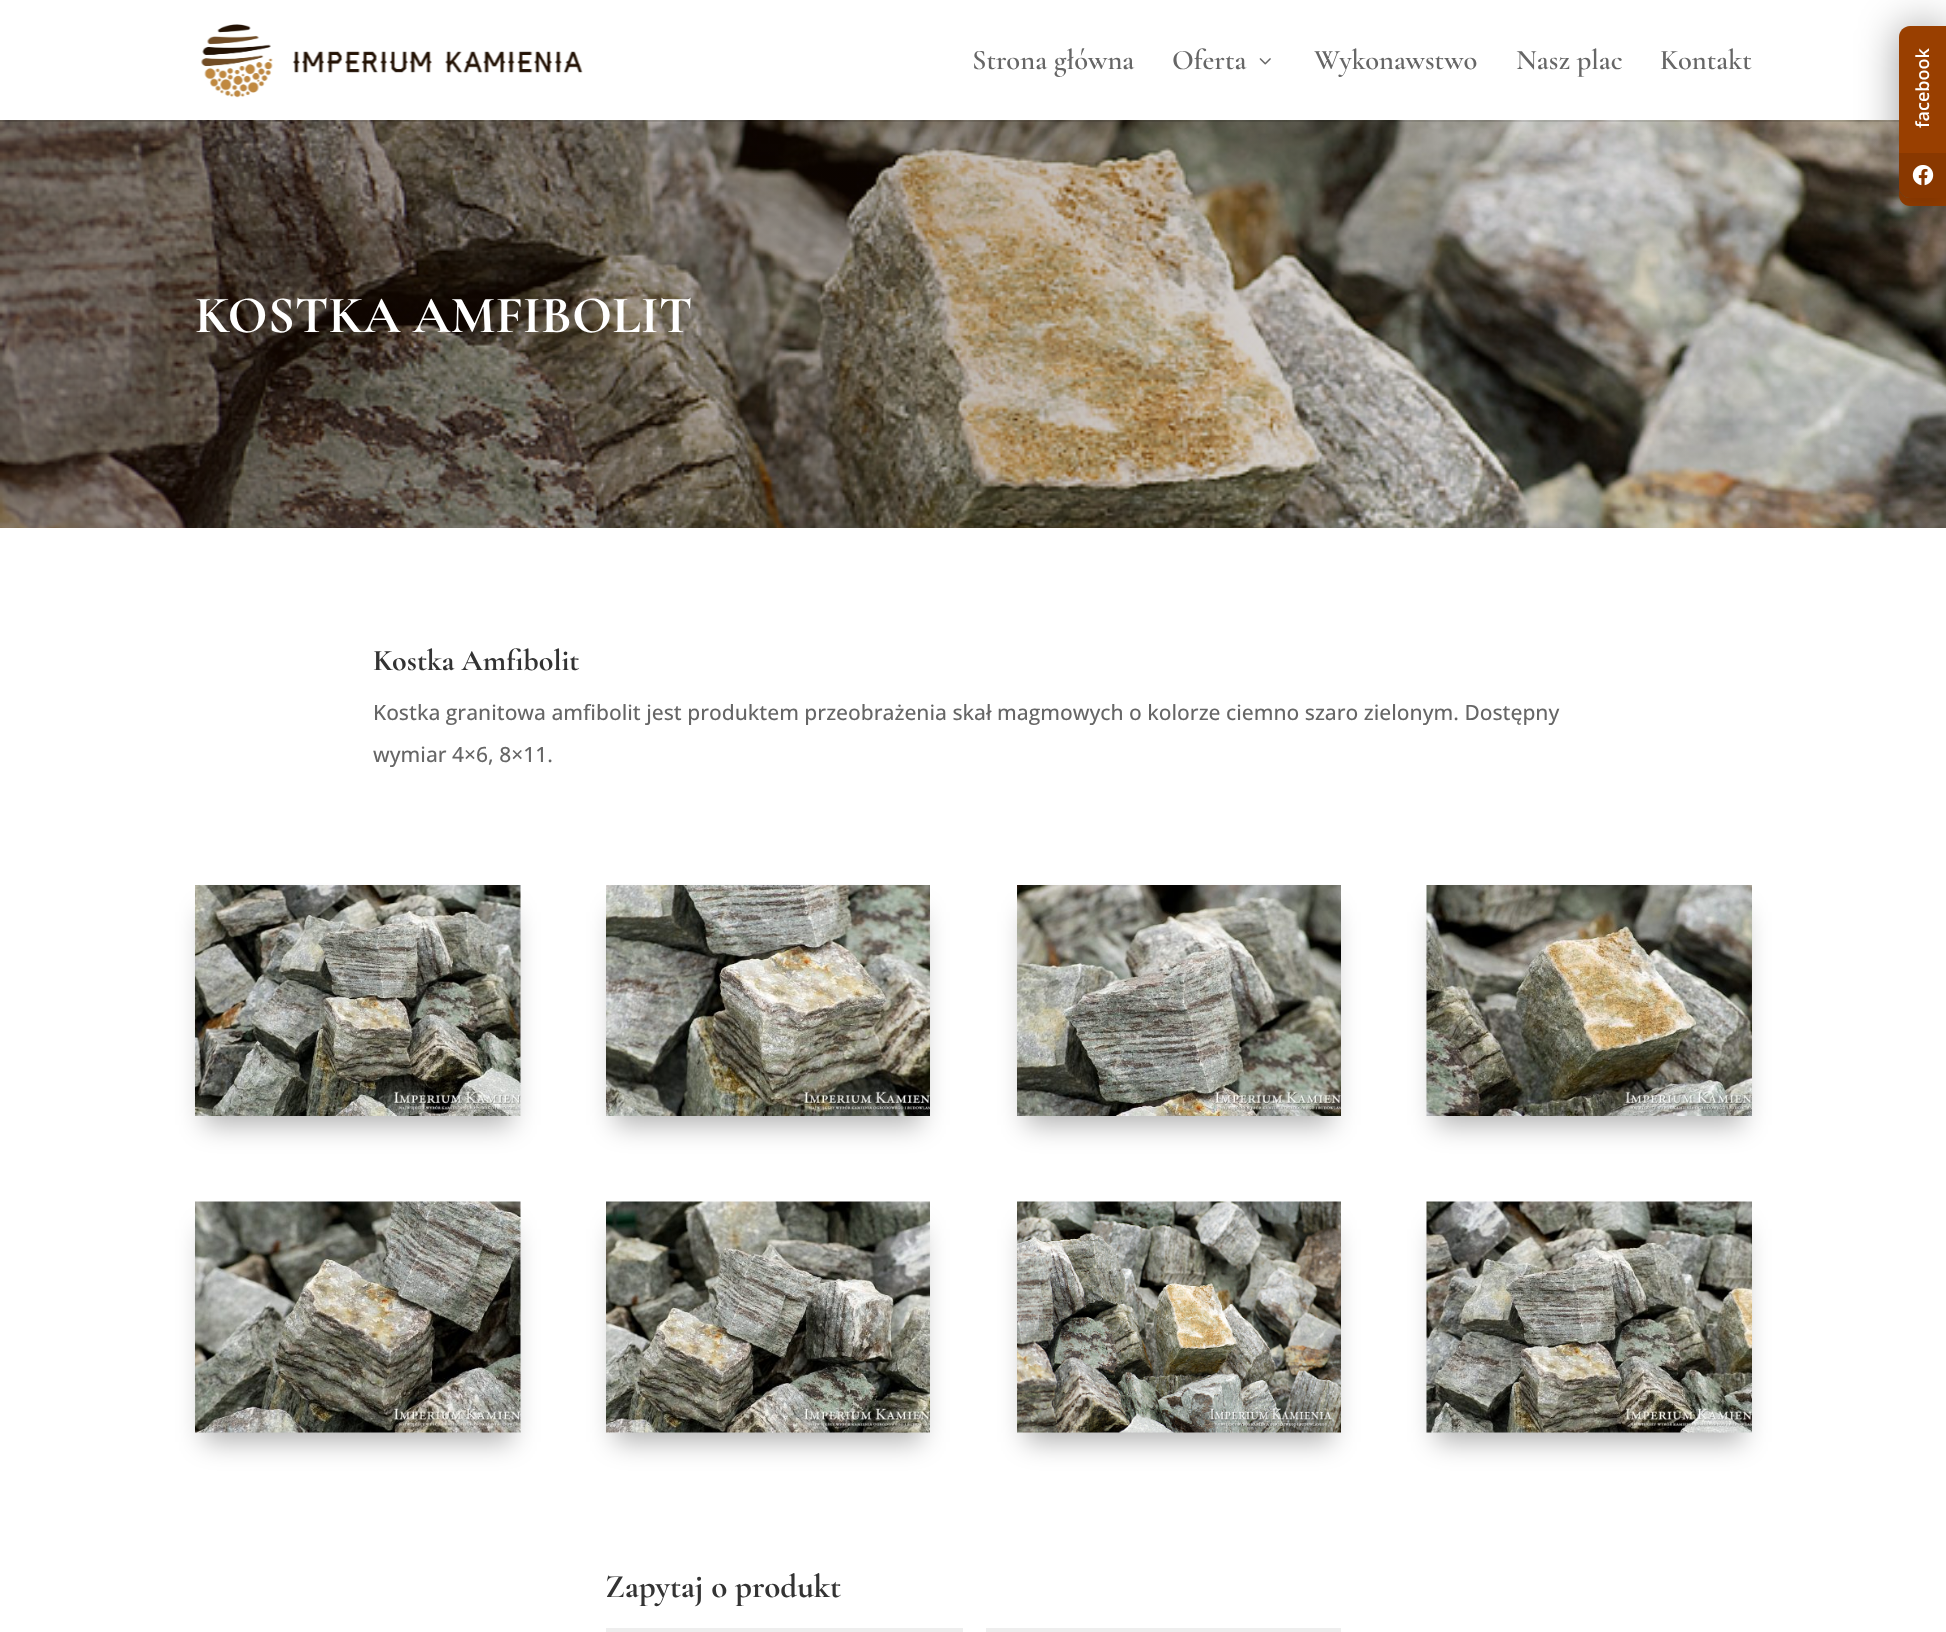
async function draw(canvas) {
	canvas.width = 1946;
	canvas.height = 1632;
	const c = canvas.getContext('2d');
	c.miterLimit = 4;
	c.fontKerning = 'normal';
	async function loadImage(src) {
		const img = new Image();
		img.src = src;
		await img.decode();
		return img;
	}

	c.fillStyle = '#fff';
	c.fillRect(0, 0, 1946, 1632);
	c.drawImage(await loadImage('img3.png'), 0, 120, 1946, 408);
	c.fillStyle = '#0000001a';
	c.fillRect(0, 120, 1899, 2);
	c.drawImage(await loadImage('img1.png'), 201, 24, 382, 74);
	c.font = '600 28.5px Cormorant Garamond';
	c.fillStyle = '#666';
	c.fillText('Strona główna', 972, 69);
	c.fillText('Oferta', 1172, 69);
	c.drawImage(await loadImage('img2.png'), 1259, 58, 12, 7);
	for (const [text, x, y] of [
		['Wykonawstwo', 1314, 69],
		['Nasz plac', 1516, 69],
		['Kontakt', 1660, 69],
	]) {
		c.fillText(text, x, y);
	}
	c.font = '300 52.5px Cormorant Garamond';
	c.fillStyle = '#fff';
	c.fillText('KOSTKA AMFIBOLIT', 195, 332);
	c.font = '300 30px Cormorant Garamond';
	c.fillStyle = '#333';
	c.fillText('Kostka Amfibolit', 373, 670);
	c.font = '500 21px Open Sans';
	c.fillStyle = '#666';
	c.fillText('Kostka granitowa amfibolit jest produktem przeobrażenia skał magmowych o kolorze ciemno szaro zielonym. Dostępny', 373, 720);
	c.fillText('wymiar 4×6, 8×11.', 373, 762);
	c.fillStyle = '#0000004d';
	c.filter = 'blur(13.5px)';
	c.beginPath();
	c.rect(204, 912, 308, 213);
	c.fill();
	c.filter = 'none';
	c.drawImage(await loadImage('img4.png'), 195, 885, 326, 231);
	c.filter = 'blur(13.5px)';
	c.beginPath();
	c.rect(615, 912, 306, 213);
	c.fill();
	c.filter = 'none';
	c.drawImage(await loadImage('img5.png'), 606, 885, 324, 231);
	c.filter = 'blur(13.5px)';
	c.beginPath();
	c.rect(1026, 912, 306, 213);
	c.fill();
	c.filter = 'none';
	c.drawImage(await loadImage('img6.png'), 1017, 885, 324, 231);
	c.filter = 'blur(13.5px)';
	c.beginPath();
	c.rect(1436, 912, 307, 213);
	c.fill();
	c.filter = 'none';
	c.drawImage(await loadImage('img7.png'), 1426, 885, 326, 231);
	c.filter = 'blur(13.5px)';
	c.beginPath();
	c.rect(204, 1229, 308, 213);
	c.fill();
	c.filter = 'none';
	c.drawImage(await loadImage('img8.png'), 195, 1201, 326, 232);
	c.filter = 'blur(13.5px)';
	c.beginPath();
	c.rect(615, 1229, 306, 213);
	c.fill();
	c.filter = 'none';
	c.drawImage(await loadImage('img9.png'), 606, 1201, 324, 232);
	c.filter = 'blur(13.5px)';
	c.beginPath();
	c.rect(1026, 1229, 306, 213);
	c.fill();
	c.filter = 'none';
	c.drawImage(await loadImage('img10.png'), 1017, 1201, 324, 232);
	c.filter = 'blur(13.5px)';
	c.beginPath();
	c.rect(1436, 1229, 307, 213);
	c.fill();
	c.filter = 'none';
	c.drawImage(await loadImage('img11.png'), 1426, 1201, 326, 232);
	c.font = '300 33px Cormorant Garamond';
	c.fillStyle = '#333';
	c.fillText('Zapytaj o produkt', 605, 1597);
	c.fillStyle = '#eee';
	c.fillRect(606, 1628, 357, 4);
	c.fillRect(986, 1628, 355, 4);
	c.fillStyle = '#993f00';
	c.beginPath();
	c.moveTo(1899, 188);
	c.lineTo(1899, 195);
	c.bezierCurveTo(1899, 201, 1904, 206, 1910, 206);
	c.lineTo(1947, 206);
	c.lineTo(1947, 198);
	c.lineTo(1910, 198);
	c.bezierCurveTo(1904, 198, 1899, 193, 1899, 188);
	c.closePath();
	c.fill();
	c.fillStyle = '#00000061';
	c.filter = 'blur(21px)';
	c.beginPath();
	c.roundRect(1899, 26, 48, 172, 11);
	c.fill();
	c.filter = 'none';
	c.fillStyle = '#993f00';
	c.beginPath();
	c.moveTo(1910, 26);
	c.lineTo(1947, 26);
	c.lineTo(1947, 198);
	c.lineTo(1910, 198);
	c.bezierCurveTo(1904, 198, 1899, 193, 1899, 187);
	c.lineTo(1899, 37);
	c.bezierCurveTo(1899, 31, 1904, 26, 1910, 26);
	c.closePath();
	c.fill();
	c.font = '600 18px Open Sans';
	c.fillStyle = '#fff';
	c.save();
	c.translate(1929, 128);
	c.rotate(-90 * Math.PI / 180);
	c.fillText('facebook', 0, 0);
	c.restore();
	c.fillStyle = '#0000001a';
	c.beginPath();
	c.moveTo(1899, 153);
	c.lineTo(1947, 153);
	c.lineTo(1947, 198);
	c.lineTo(1910, 198);
	c.bezierCurveTo(1904, 198, 1899, 193, 1899, 187);
	c.closePath();
	c.fill();
	c.drawImage(await loadImage('img12.png'), 1912, 165, 22, 21);
}

draw(document.querySelector('canvas'));
